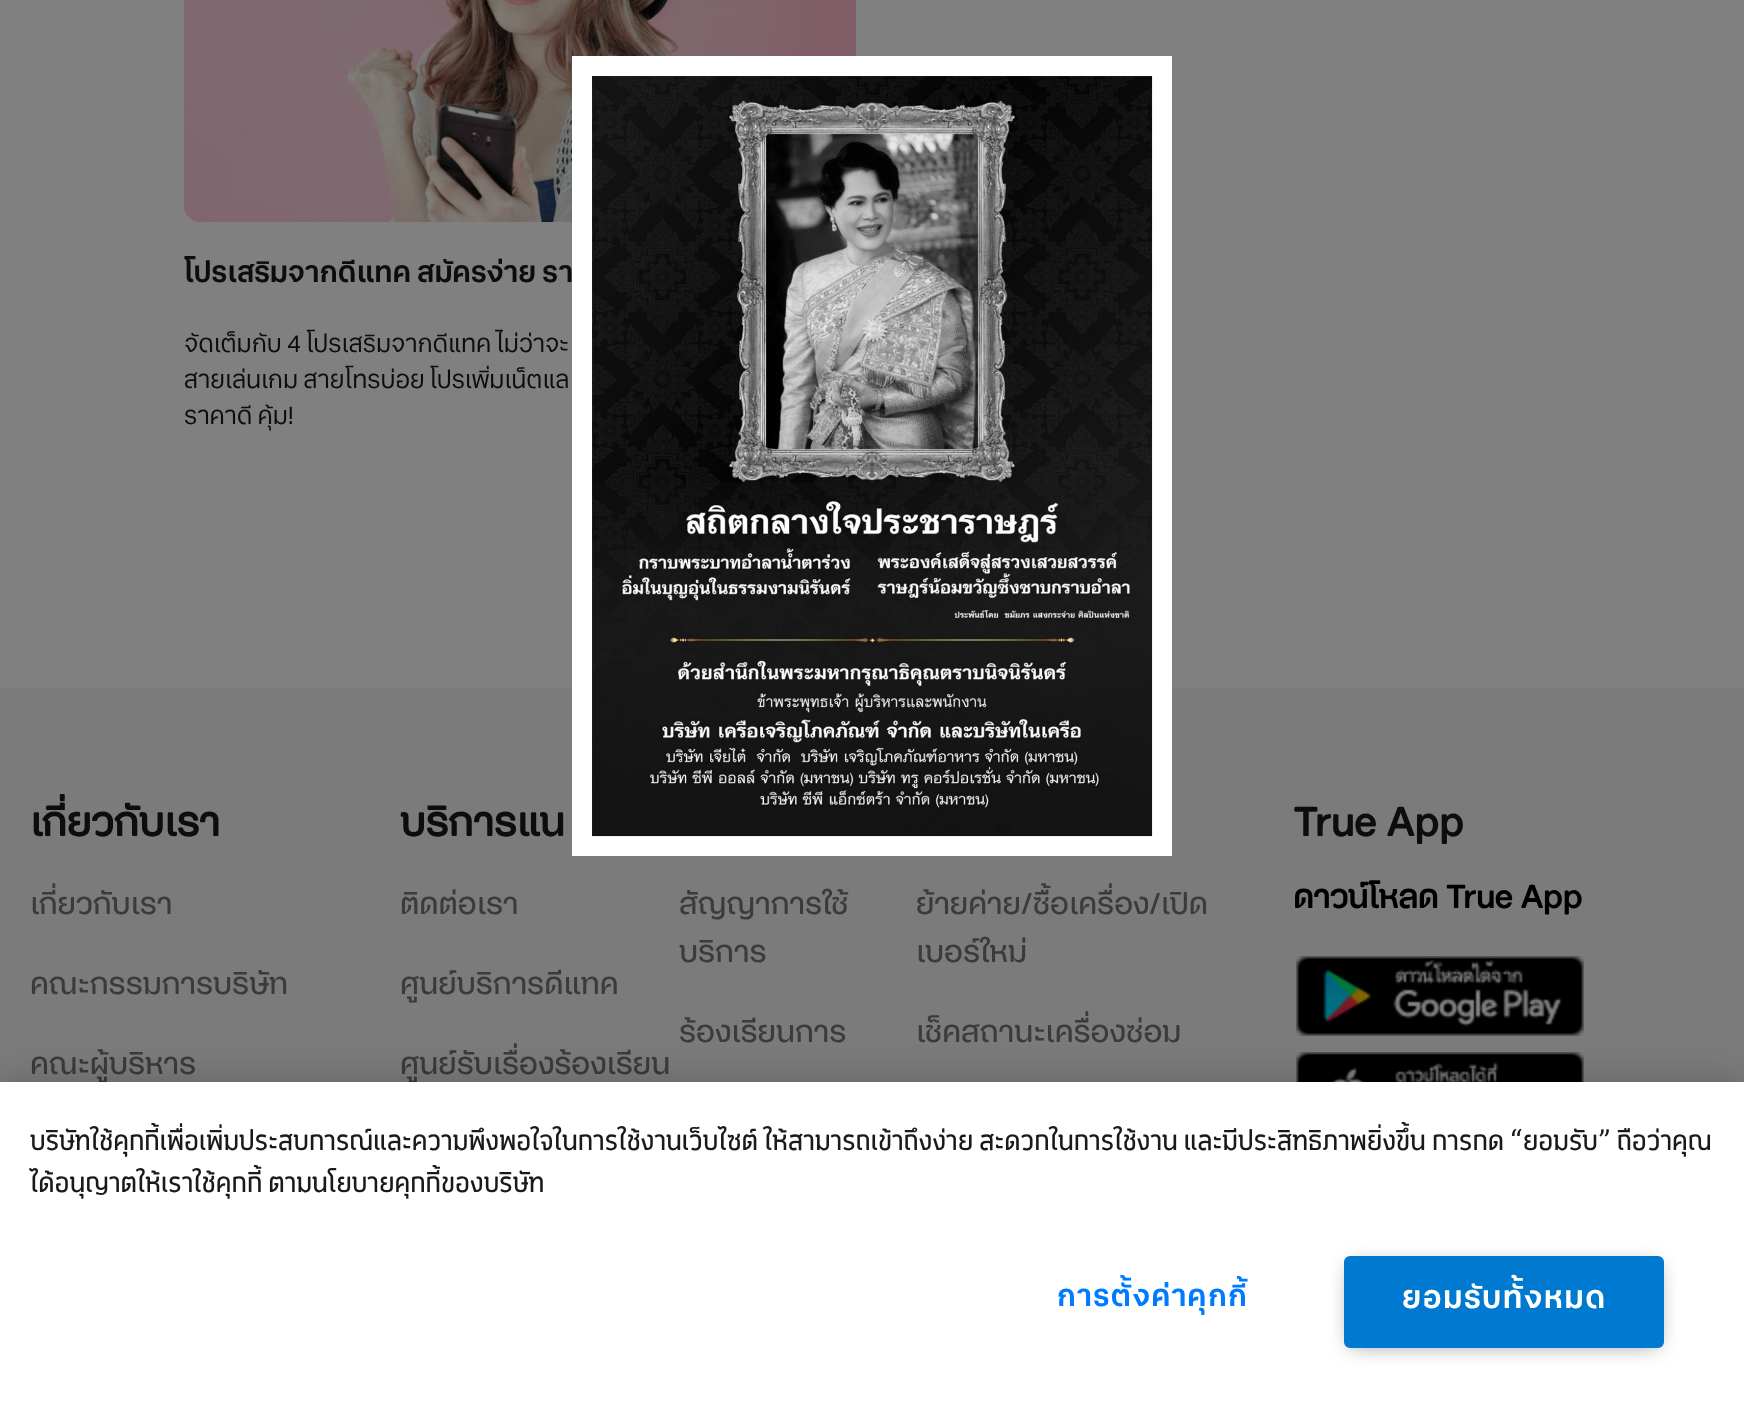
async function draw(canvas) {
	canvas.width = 1744;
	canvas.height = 1402;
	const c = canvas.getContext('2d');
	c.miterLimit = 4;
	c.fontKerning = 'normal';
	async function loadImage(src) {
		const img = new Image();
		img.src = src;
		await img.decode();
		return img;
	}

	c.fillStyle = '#808080';
	c.fillRect(0, 0, 1744, 1402);
	c.drawImage(await loadImage('img1.png'), 184, 0, 672, 222);
	c.font = 'bold 28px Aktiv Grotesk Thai';
	c.fillStyle = '#0d0d0d';
	c.fillText('โปรเสริมจากดีแทค สมัครง่าย รา', 184, 282);
	c.save();
	c.beginPath();
	c.rect(184, 0, 1376, 466);
	c.clip();
	c.font = '24px Aktiv Grotesk Thai';
	c.fillText('จัดเต็มกับ 4 โปรเสริมจากดีแทค ไม่ว่าจะ', 184, 352);
	c.restore();
	c.font = '24px Aktiv Grotesk Thai';
	c.fillText('สายเล่นเกม สายโทรบ่อย โปรเพิ่มเน็ตแล', 184, 388);
	c.fillText('ราคาดี คุ้ม!', 184, 424);
	c.fillStyle = '#7b7b7b';
	c.fillRect(0, 688, 1744, 394);
	c.strokeStyle = '#fff';
	c.lineWidth = 20;
	c.strokeRect(582, 66, 580, 780);
	c.drawImage(await loadImage('img2.png'), 592, 76, 561, 761);
	c.font = 'bold 40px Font';
	c.fillStyle = '#0d0d0d';
	c.fillText('เกี่ยวกับเรา', 30, 836);
	c.font = '30px Font';
	c.fillStyle = '#3b3b3b';
	for (const [text, x, y] of [
		['เกี่ยวกับเรา', 30, 914],
		['คณะกรรมการบริษัท', 30, 994],
		['คณะผู้บริหาร', 30, 1074],
	]) {
		c.fillText(text, x, y);
	}
	c.font = 'bold 40px Font';
	c.fillStyle = '#0d0d0d';
	c.fillText('บริการแน', 400, 836);
	c.font = '30px Font';
	c.fillStyle = '#3b3b3b';
	for (const [text, x, y] of [
		['ติดต่อเรา', 400, 914],
		['ศูนย์บริการดีแทค', 400, 994],
		['ศูนย์รับเรื่องร้องเรียน', 400, 1074],
		['สัญญาการใช้', 679, 914],
		['บริการ', 679, 962],
		['ร้องเรียนการ', 679, 1042],
		['ย้ายค่าย/ซื้อเครื่อง/เปิด', 916, 914],
		['เบอร์ใหม่', 916, 962],
		['เช็คสถานะเครื่องซ่อม', 916, 1042],
	]) {
		c.fillText(text, x, y);
	}
	c.font = 'bold 40px Font';
	c.fillStyle = '#0d0d0d';
	c.fillText('True App', 1293, 836);
	c.font = 'bold 32px Font';
	c.fillStyle = '#000';
	c.fillText('ดาวน์โหลด True App', 1293, 908);
	c.drawImage(await loadImage('img3.png'), 1296, 956, 288, 80);
	c.drawImage(await loadImage('img4.png'), 1296, 1052, 288, 30);
	c.fillStyle = '#00000033';
	c.filter = 'blur(18px)';
	c.beginPath();
	c.rect(0, 1082, 1744, 320);
	c.fill();
	c.filter = 'none';
	c.fillStyle = '#fff';
	c.fillRect(0, 1082, 1744, 320);
	c.font = '28px "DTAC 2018"';
	c.fillStyle = '#1a1a1a';
	c.fillText('บริษัทใช้คุกกี้เพื่อเพิ่มประสบการณ์และความพึงพอใจในการใช้งานเว็บไซต์ ให้สามารถเข้าถึงง่าย สะดวกในการใช้งาน และมีประสิทธิภาพยิ่งขึ้น การกด “ยอมรับ” ถือว่าคุณ', 30, 1150);
	c.fillText('ได้อนุญาตให้เราใช้คุกกี้ ตามนโยบายคุกกี้ของบริษัท', 30, 1192);
	c.letterSpacing = '1.5px';
	c.font = 'bold 28.75px Aktiv Grotesk Thai';
	c.fillStyle = '#007bff';
	c.fillText('การตั้งค่าคุกกี้', 1057, 1306);
	c.fillStyle = '#999';
	c.filter = 'blur(10px)';
	c.beginPath();
	c.rect(1350, 1266, 308, 80);
	c.fill();
	c.filter = 'none';
	c.fillStyle = '#007ad0';
	c.beginPath();
	c.roundRect(1345, 1257, 318, 90, 5);
	c.fill();
	c.strokeStyle = '#007ad0';
	c.lineWidth = 2;
	c.stroke();
	c.font = 'bold 30px Aktiv Grotesk Thai';
	c.fillStyle = '#fff';
	c.fillText('ยอมรับทั้งหมด', 1402, 1308);
}

draw(document.querySelector('canvas'));
